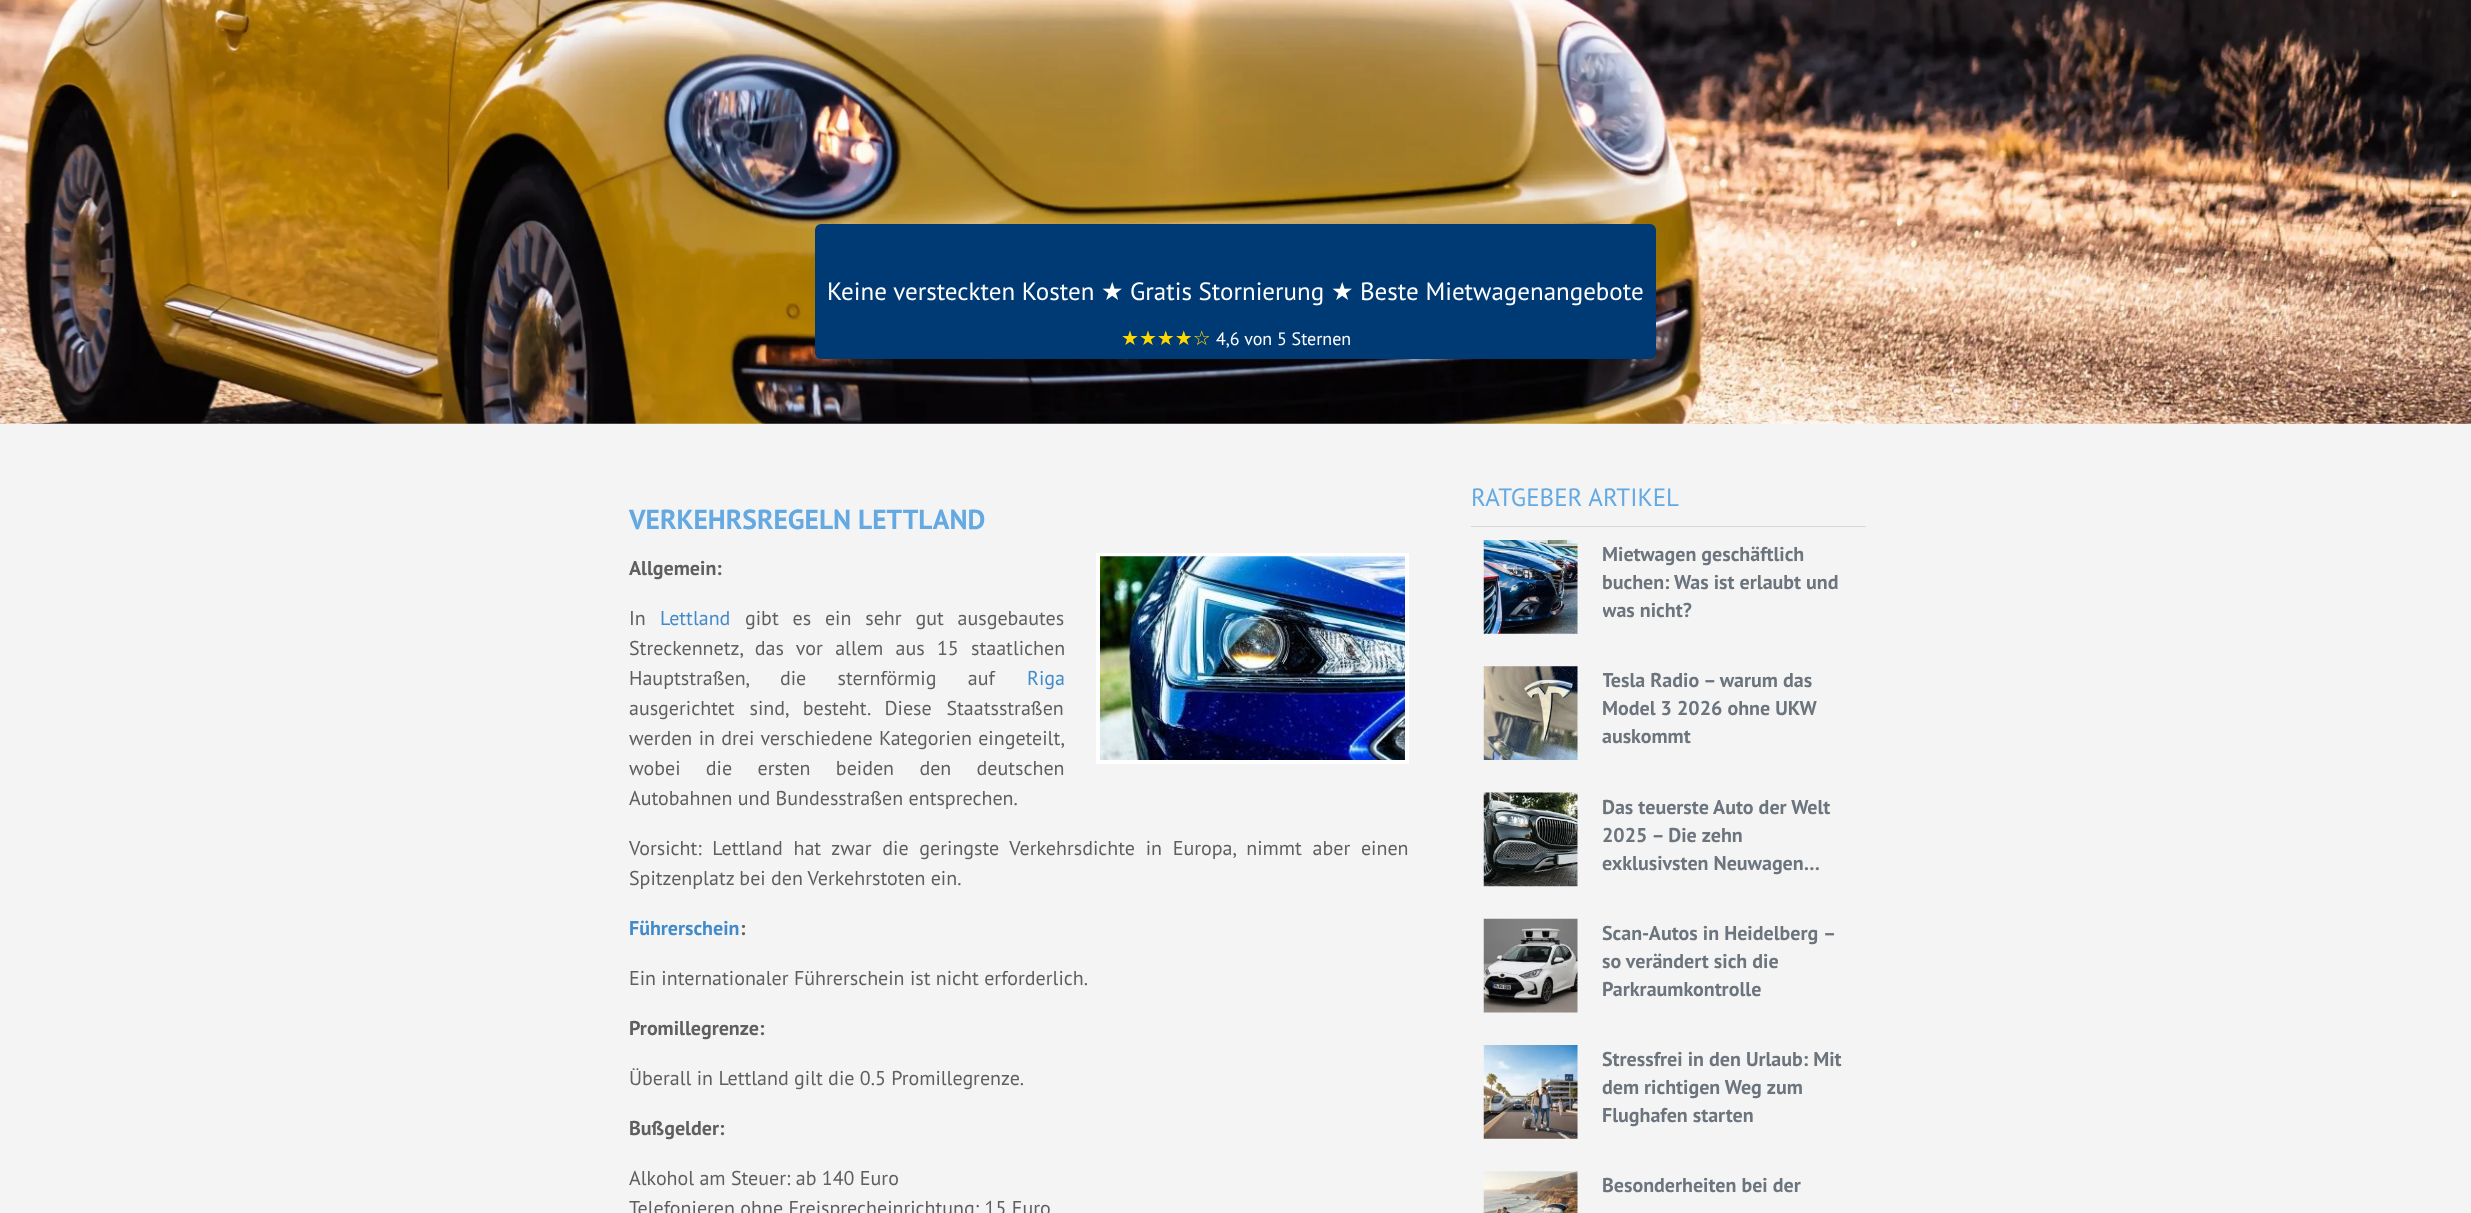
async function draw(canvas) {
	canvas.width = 2471;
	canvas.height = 1213;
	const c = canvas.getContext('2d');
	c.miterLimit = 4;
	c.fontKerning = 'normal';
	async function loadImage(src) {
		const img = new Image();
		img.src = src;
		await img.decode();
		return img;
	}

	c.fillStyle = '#f4f4f4';
	c.fillRect(0, 0, 2471, 1213);
	c.drawImage(await loadImage('img1.png'), 0, 0, 2471, 424);
	c.fillStyle = '#003a74';
	c.beginPath();
	c.roundRect(815, 224, 841, 135, 6);
	c.fill();
	c.font = '25px PT Sans';
	c.fillStyle = '#fff';
	c.fillText('Keine versteckten Kosten', 827, 300);
	c.font = '25px DejaVu Sans';
	c.fillText('★', 1101, 300);
	c.font = '25px PT Sans';
	c.fillText('Gratis Stornierung', 1130, 300);
	c.font = '25px DejaVu Sans';
	c.fillText('★', 1331, 300);
	c.font = '25px PT Sans';
	c.fillText('Beste Mietwagenangebote', 1360, 300);
	c.font = '20px DejaVu Sans';
	c.fillStyle = '#ffd700';
	c.fillText('★★★★☆', 1121, 345);
	c.font = '18px PT Sans';
	c.fillStyle = '#fff';
	c.fillText('4,6 von 5 Sternen', 1216, 345);
	c.font = 'bold 27.5px PT Sans';
	c.fillStyle = '#64a9e2';
	c.fillText('VERKEHRSREGELN LETTLAND', 629, 529);
	c.font = 'bold 20px PT Sans';
	c.fillStyle = '#5f5f5f';
	c.fillText('Allgemein:', 629, 575);
	c.strokeStyle = '#fff';
	c.lineWidth = 4;
	c.strokeRect(1098, 555, 309, 207);
	c.drawImage(await loadImage('img2.png'), 1100, 556, 305, 204);
	c.font = '20px PT Sans';
	c.fillText('In', 629, 625);
	c.fillStyle = '#428bca';
	c.fillText('Lettland', 660, 625);
	c.wordSpacing = '8.5px';
	c.fillStyle = '#5f5f5f';
	c.fillText('gibt es ein sehr gut ausgebautes', 745, 625);
	c.wordSpacing = '7px';
	c.fillText('Streckennetz, das vor allem aus 15 staatlichen', 629, 655);
	c.wordSpacing = '26px';
	c.fillText('Hauptstraßen, die sternförmig auf', 629, 685);
	c.wordSpacing = '0px';
	c.fillStyle = '#428bca';
	c.fillText('Riga', 1027, 685);
	c.wordSpacing = '9.5px';
	c.fillStyle = '#5f5f5f';
	c.fillText('ausgerichtet sind, besteht. Diese Staatsstraßen', 629, 715);
	c.wordSpacing = '1px';
	c.fillText('werden in drei verschiedene Kategorien eingeteilt,', 629, 745);
	c.wordSpacing = '20px';
	c.fillText('wobei die ersten beiden den deutschen', 629, 775);
	c.wordSpacing = '0px';
	c.fillText('Autobahnen und Bundesstraßen entsprechen.', 629, 805);
	c.wordSpacing = '5.4px';
	c.fillText('Vorsicht: Lettland hat zwar die geringste Verkehrsdichte in Europa, nimmt aber einen', 629, 855);
	c.wordSpacing = '0px';
	c.fillText('Spitzenplatz bei den Verkehrstoten ein.', 629, 885);
	c.font = 'bold 20px PT Sans';
	c.fillStyle = '#428bca';
	c.fillText('Führerschein', 629, 935);
	c.fillStyle = '#5f5f5f';
	c.fillText(':', 740, 935);
	c.font = '20px PT Sans';
	c.fillText('Ein internationaler Führerschein ist nicht erforderlich.', 629, 985);
	c.font = 'bold 20px PT Sans';
	c.fillText('Promillegrenze:', 629, 1035);
	c.font = '20px PT Sans';
	c.fillText('Überall in Lettland gilt die 0.5 Promillegrenze.', 629, 1085);
	c.font = 'bold 20px PT Sans';
	c.fillText('Bußgelder:', 629, 1135);
	c.font = '20px PT Sans';
	c.fillText('Alkohol am Steuer: ab 140 Euro', 629, 1185);
	c.fillText('Telefonieren ohne Freisprecheinrichtung: 15 Euro', 629, 1215);
	c.fillStyle = '#d7d7d7';
	c.fillRect(1471, 526, 395, 1);
	c.font = '25px PT Sans';
	c.fillStyle = '#64a9e2';
	c.fillText('RATGEBER ARTIKEL', 1471, 506);
	c.drawImage(await loadImage('img3.png'), 1483, 540, 95, 94);
	c.font = 'bold 20px PT Sans';
	c.fillStyle = '#6c757d';
	c.fillText('Mietwagen geschäftlich', 1602, 561);
	c.fillText('buchen: Was ist erlaubt und', 1602, 589);
	c.save();
	c.beginPath();
	c.rect(1603, 540, 251, 84);
	c.clip();
	c.fillText('was nicht?', 1602, 617);
	c.restore();
	c.drawImage(await loadImage('img4.png'), 1483, 666, 95, 94);
	c.save();
	c.beginPath();
	c.rect(1603, 666, 251, 84);
	c.clip();
	c.fillText('Tesla Radio – warum das', 1602, 687);
	c.restore();
	c.fillText('Model 3 2026 ohne UKW', 1602, 715);
	c.fillText('auskommt', 1602, 743);
	c.drawImage(await loadImage('img5.png'), 1483, 792, 95, 95);
	for (const [text, x, y] of [
		['Das teuerste Auto der Welt', 1602, 814],
		['2025 – Die zehn', 1602, 842],
		['exklusivsten Neuwagen…', 1602, 870],
	]) {
		c.fillText(text, x, y);
	}
	c.drawImage(await loadImage('img6.png'), 1483, 918, 95, 95);
	for (const [text, x, y] of [
		['Scan-Autos in Heidelberg', 1602, 940],
		['–', 1823, 940],
		['so verändert sich die', 1602, 968],
		['Parkraumkontrolle', 1602, 996],
	]) {
		c.fillText(text, x, y);
	}
	c.drawImage(await loadImage('img7.png'), 1483, 1045, 95, 94);
	for (const [text, x, y] of [
		['Stressfrei in den Urlaub: Mit', 1602, 1066],
		['dem richtigen Weg zum', 1602, 1094],
		['Flughafen starten', 1602, 1122],
	]) {
		c.fillText(text, x, y);
	}
	c.drawImage(await loadImage('img8.png'), 1483, 1171, 95, 42);
	c.fillText('Besonderheiten bei der', 1602, 1192);
}

draw(document.querySelector('canvas'));
